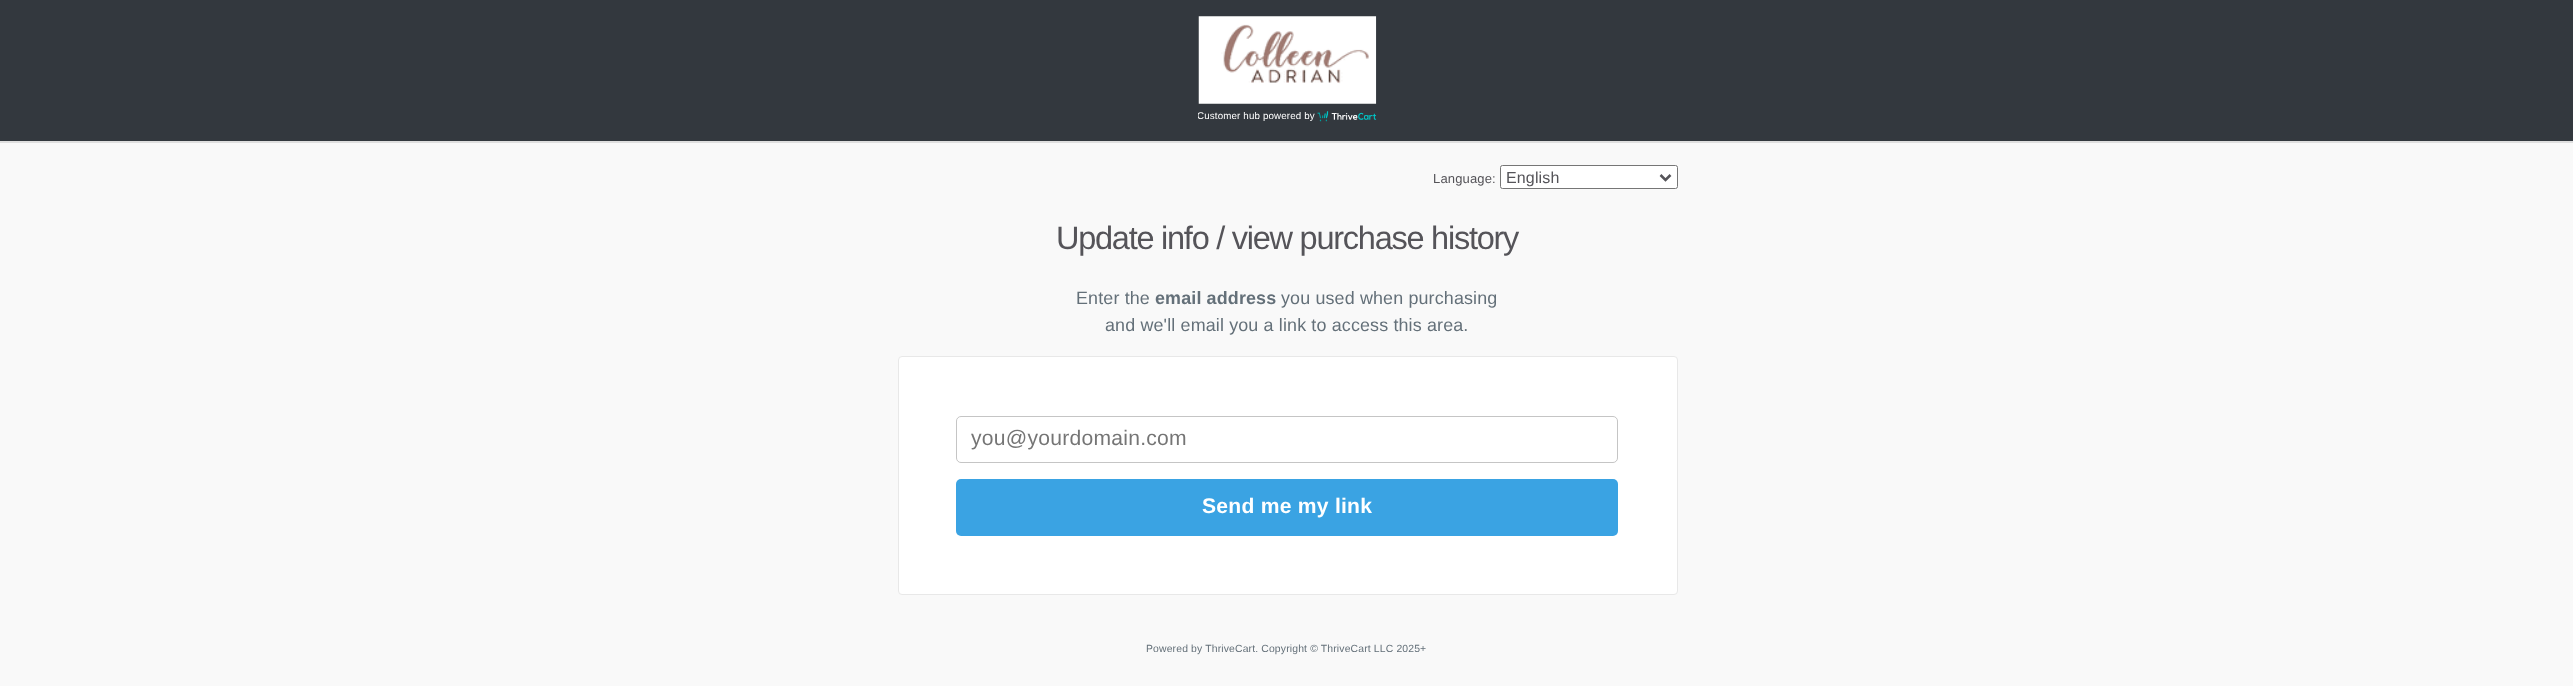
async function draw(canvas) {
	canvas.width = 2573;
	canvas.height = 686;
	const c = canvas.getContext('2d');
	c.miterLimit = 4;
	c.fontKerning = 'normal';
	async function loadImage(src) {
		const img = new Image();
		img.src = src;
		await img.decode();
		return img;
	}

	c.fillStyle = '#f9f9f9';
	c.fillRect(0, 0, 2573, 686);
	c.fillStyle = '#0000001a';
	c.filter = 'blur(0.5px)';
	c.beginPath();
	c.rect(0, 1, 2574, 142);
	c.fill();
	c.filter = 'none';
	c.fillStyle = '#33383e';
	c.fillRect(0, 0, 2573, 141);
	c.drawImage(await loadImage('img1.png'), 1198, 16, 179, 88);
	c.save();
	c.beginPath();
	c.rect(1198, 0, 178, 138);
	c.clip();
	c.letterSpacing = '0.15px';
	c.font = '9.75px Liberation Sans';
	c.fillStyle = '#fff';
	c.fillText('Customer hub powered by', 1197, 119);
	c.restore();
	c.drawImage(await loadImage('img2.png'), 1317, 111, 60, 11);
	c.letterSpacing = '0.15px';
	c.font = '13px Liberation Sans';
	c.fillStyle = '#555459';
	c.fillText('Language:', 1433, 183);
	c.fillStyle = '#fff';
	c.beginPath();
	c.roundRect(1500.5, 165.5, 177, 23, 2);
	c.fill();
	c.strokeStyle = '#767676';
	c.stroke();
	c.beginPath();
	c.moveTo(1660.5, 175);
	c.lineTo(1665.5, 180);
	c.lineTo(1670.5, 175);
	c.strokeStyle = '#555459';
	c.lineWidth = 2.5;
	c.stroke();
	c.font = '16px Liberation Sans';
	c.fillStyle = '#555459';
	c.fillText('English', 1506, 183);
	c.letterSpacing = '-1.25px';
	c.font = '32.5px Liberation Sans';
	c.fillText('Update info / view purchase history', 1056, 249);
	c.letterSpacing = '0.15px';
	c.font = '17.9px Liberation Sans';
	c.fillStyle = '#647079';
	c.fillText('Enter the', 1076, 304);
	c.font = 'bold 17.9px Liberation Sans';
	c.fillText('email address', 1155, 304);
	c.font = '17.9px Liberation Sans';
	c.fillText('you used when purchasing', 1281, 304);
	c.fillText('and we\'ll email you a link to access this area.', 1105, 331);
	c.fillStyle = '#fff';
	c.beginPath();
	c.roundRect(898.5, 356.5, 779, 238, 3.5);
	c.fill();
	c.strokeStyle = '#e8e8e8';
	c.lineWidth = 1;
	c.stroke();
	c.beginPath();
	c.roundRect(956.5, 416.5, 661, 46, 4.5);
	c.strokeStyle = '#c5c5c5';
	c.stroke();
	c.letterSpacing = '0.25px';
	c.font = '21.1px Liberation Sans';
	c.fillStyle = '#757575';
	c.fillText('you@yourdomain.com', 971, 445);
	c.fillStyle = '#3aa3e3';
	c.beginPath();
	c.roundRect(956, 479, 662, 57, 5);
	c.fill();
	c.font = 'bold 21.1px Liberation Sans';
	c.fillStyle = '#fff';
	c.fillText('Send me my link', 1202, 513);
	c.letterSpacing = '0.15px';
	c.font = '10.4px Liberation Sans';
	c.fillStyle = '#647079';
	c.fillText('Powered by ThriveCart. Copyright © ThriveCart LLC 2025+', 1146, 652);
}

draw(document.querySelector('canvas'));
